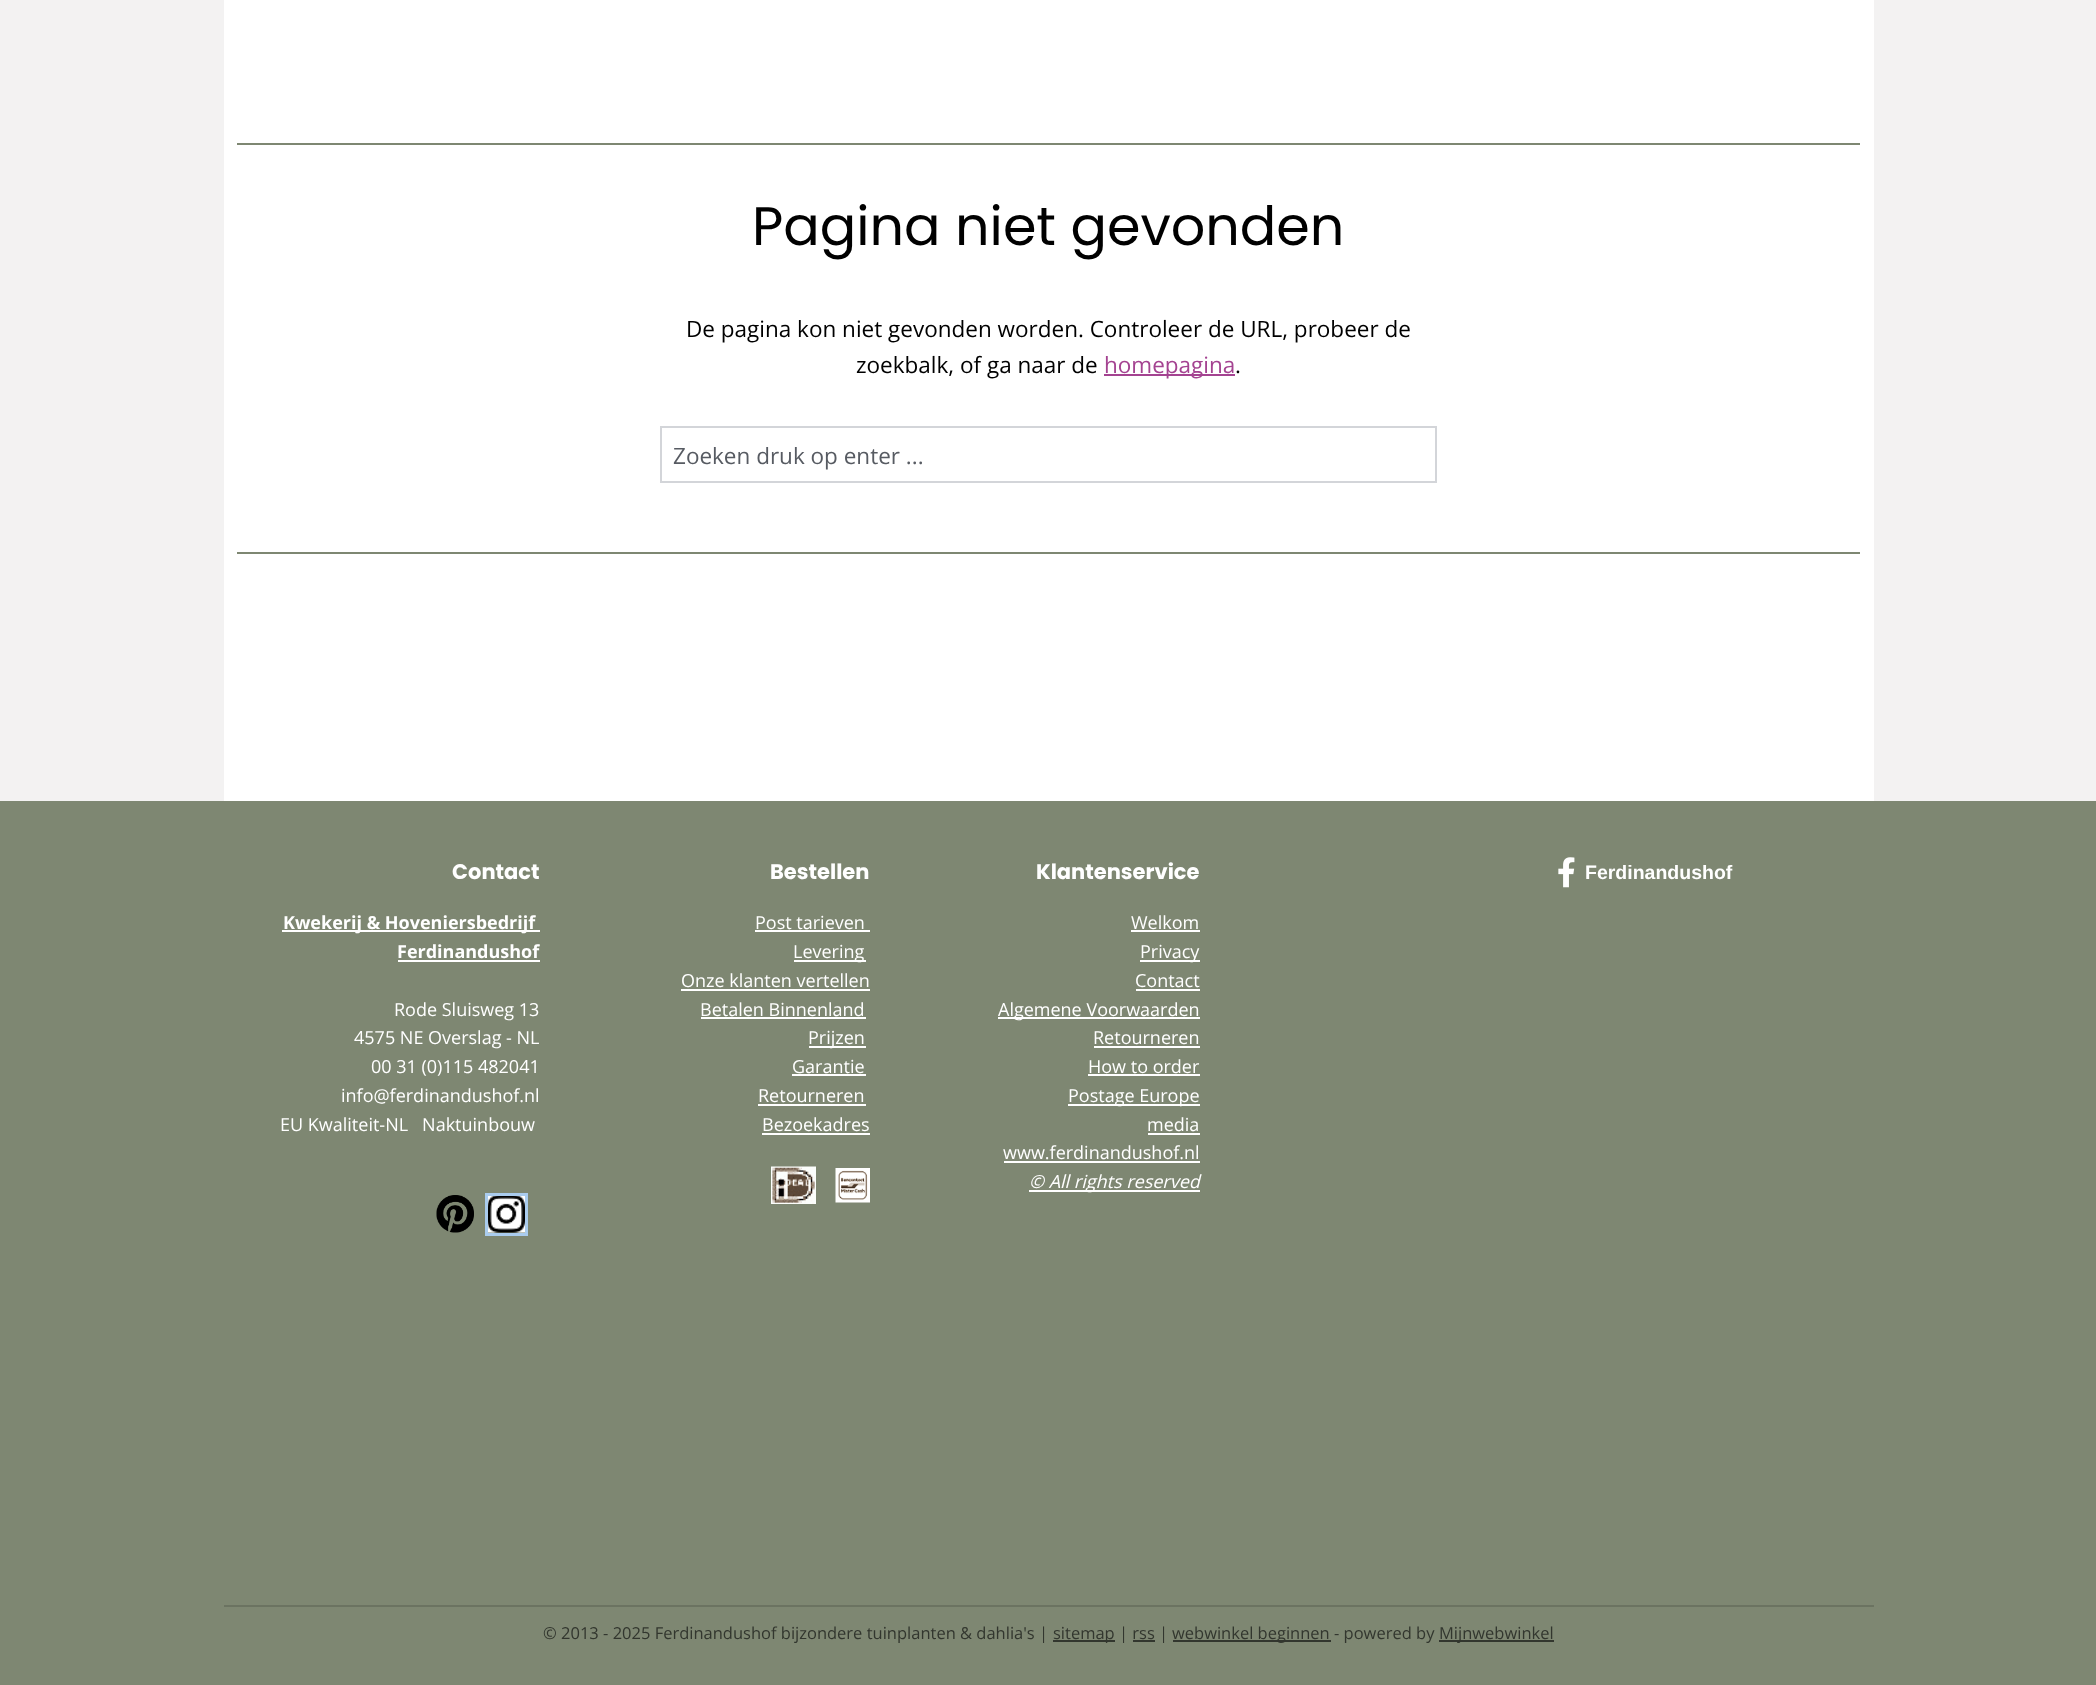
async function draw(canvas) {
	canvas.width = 2096;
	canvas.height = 1685;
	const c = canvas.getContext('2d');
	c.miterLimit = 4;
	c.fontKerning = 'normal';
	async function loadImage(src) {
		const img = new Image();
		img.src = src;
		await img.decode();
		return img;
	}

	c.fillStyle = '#7e8772';
	c.fillRect(0, 0, 2096, 1685);
	for (const [x, y, w, h, color] of [
		[0, 0, 2096, 801, '#f3f2f2'],
		[224, 0, 1650, 801, '#fff'],
		[237, 143, 1623, 2, '#7e8772'],
		[237, 552, 1623, 2, '#7e8772'],
	]) {
		c.fillStyle = color;
		c.fillRect(x, y, w, h);
	}
	c.font = '54px Poppins';
	c.fillStyle = '#000';
	c.fillText('Pagina niet gevonden', 752, 245);
	c.font = '22.5px Open Sans';
	c.fillText('De pagina kon niet gevonden worden. Controleer de URL, probeer de', 686, 337);
	c.fillText('zoekbalk, of ga naar de', 856, 373);
	c.fillStyle = '#a44391';
	c.fillRect(1104, 374, 131, 2);
	c.fillText('homepagina', 1104, 373);
	c.fillStyle = '#000';
	c.fillText('.', 1235, 373);
	c.strokeStyle = '#d3d5d9';
	c.lineWidth = 2;
	c.strokeRect(661, 427, 775, 55);
	c.fillStyle = '#575b62';
	c.fillText('Zoeken druk op enter ...', 673, 464);
	c.font = 'bold 21px Poppins';
	c.fillStyle = '#fff';
	c.fillText('Contact', 452, 879);
	c.fillRect(282, 930, 258, 2);
	c.font = 'bold 18px Open Sans';
	c.fillText('Kwekerij & Hoveniersbedrijf', 283, 929);
	c.fillText('Ferdinandushof', 397, 958);
	c.fillRect(398, 960, 142, 2);
	c.font = '18px Open Sans';
	for (const [text, x, y] of [
		['Rode Sluisweg 13', 394, 1016],
		['4575 NE Overslag - NL', 354, 1044],
		['00 31 (0)115 482041', 371, 1073],
		['info@ferdinandushof.nl', 341, 1102],
		['EU Kwaliteit-NL   Naktuinbouw', 280, 1131],
	]) {
		c.fillText(text, x, y);
	}
	c.drawImage(await loadImage('img1.png'), 436, 1195, 38, 38);
	c.drawImage(await loadImage('img2.png'), 488, 1196, 37, 37);
	c.strokeStyle = '#ace';
	c.lineWidth = 3;
	c.strokeRect(486.5, 1194.5, 40, 40);
	c.font = 'bold 21px Poppins';
	c.fillText('Bestellen', 770, 879);
	c.font = '18px Open Sans';
	c.fillText('Post tarieven', 755, 929);
	c.fillRect(755, 930, 115, 2);
	c.fillRect(794, 960, 72, 2);
	c.fillText('Levering', 793, 958);
	c.fillText('Onze klanten vertellen', 681, 987);
	c.fillRect(681, 989, 189, 2);
	c.fillText('Betalen Binnenland', 700, 1016);
	c.fillRect(701, 1017, 165, 2);
	c.fillRect(809, 1046, 57, 2);
	c.fillText('Prijzen', 808, 1044);
	c.fillText('Garantie', 792, 1073);
	c.fillRect(792, 1074, 74, 2);
	c.fillText('Retourneren', 758, 1102);
	c.fillRect(758, 1104, 108, 2);
	c.fillText('Bezoekadres', 762, 1131);
	c.fillRect(762, 1133, 108, 2);
	c.drawImage(await loadImage('img3.png'), 771, 1166, 45, 38);
	c.drawImage(await loadImage('img4.png'), 835, 1168, 35, 35);
	c.font = 'bold 21px Poppins';
	c.fillText('Klantenservice', 1036, 879);
	c.font = '18px Open Sans';
	c.fillText('Welkom', 1131, 929);
	c.fillRect(1131, 930, 69, 2);
	c.fillRect(1140, 960, 60, 2);
	c.fillText('Privacy', 1140, 958);
	c.fillText('Contact', 1135, 987);
	c.fillRect(1136, 989, 64, 2);
	c.fillRect(998, 1017, 202, 2);
	c.fillText('Algemene Voorwaarden', 998, 1016);
	c.fillText('Retourneren', 1093, 1044);
	c.fillRect(1094, 1046, 106, 2);
	c.fillText('How to order', 1088, 1073);
	c.fillRect(1088, 1074, 112, 2);
	c.fillRect(1068, 1104, 132, 2);
	c.fillText('Postage Europe', 1068, 1102);
	c.fillText('media', 1147, 1131);
	c.fillRect(1148, 1133, 52, 2);
	c.fillText('www.ferdinandushof.nl', 1003, 1159);
	c.fillRect(1004, 1161, 196, 2);
	c.fillRect(1029, 1190, 171, 2);
	c.font = 'italic 18px Open Sans';
	c.fillText('© All rights reserved', 1029, 1188);
	c.drawImage(await loadImage('img5.png'), 1558, 857, 17, 31);
	c.font = 'bold 19.5px Liberation Sans';
	c.fillText('Ferdinandushof', 1585, 879);
	c.fillStyle = '#6b7361';
	c.fillRect(224, 1605, 1650, 2);
	c.font = '16.5px Open Sans';
	c.fillStyle = '#32362e';
	c.fillText('© 2013 - 2025 Ferdinandushof bijzondere tuinplanten & dahlia\'s |', 543, 1639);
	c.fillRect(1053, 1640, 62, 2);
	c.fillText('sitemap', 1053, 1639);
	c.fillText('| rss |', 1119, 1639);
	c.fillRect(1173, 1640, 158, 2);
	c.fillText('webwinkel beginnen', 1172, 1639);
	c.fillText('- powered by', 1334, 1639);
	c.fillRect(1439, 1640, 115, 2);
	c.fillText('Mijnwebwinkel', 1439, 1639);
	c.fillRect(1133, 1640, 22, 2);
}

draw(document.querySelector('canvas'));
